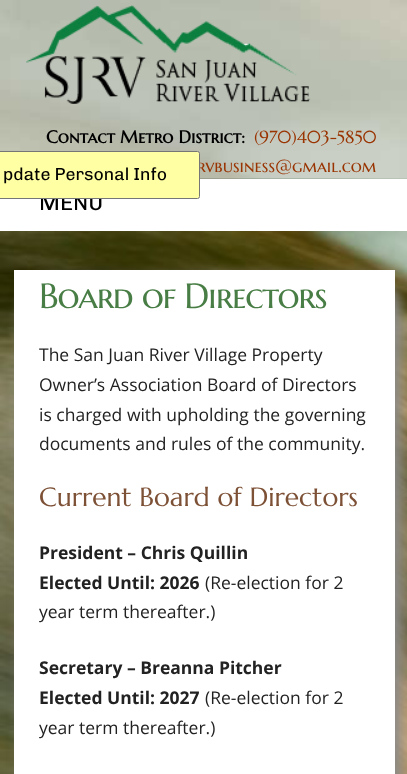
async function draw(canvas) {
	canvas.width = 407;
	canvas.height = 774;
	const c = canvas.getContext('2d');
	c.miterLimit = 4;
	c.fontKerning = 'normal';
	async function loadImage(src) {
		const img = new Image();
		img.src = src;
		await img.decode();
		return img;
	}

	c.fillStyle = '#fff';
	c.fillRect(0, 0, 407, 774);
	c.drawImage(await loadImage('img1.png'), 0, 178, 407, 596);
	c.drawImage(await loadImage('img2.png'), 0, 0, 407, 179);
	c.drawImage(await loadImage('img3.png'), 26, 5, 285, 99);
	c.font = 'bold 17.5px Marcellus SC';
	c.fillStyle = '#000';
	c.fillText('Contact Metro District:', 46, 143);
	c.font = '17.5px Marcellus SC';
	c.fillStyle = '#930';
	c.fillText('(970)403-5850', 254, 143);
	c.fillText('rvbusiness@gmail.com', 197, 172);
	c.fillStyle = '#fff';
	c.fillRect(0, 179, 407, 52);
	c.font = '22px Chivo';
	c.fillStyle = '#000';
	c.fillText('MENU', 39, 210);
	c.fillStyle = '#ffffa3';
	c.beginPath();
	c.roundRect(-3.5, 151.5, 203, 47, 2);
	c.fill();
	c.strokeStyle = '#767676';
	c.stroke();
	c.font = '17.5px Chivo';
	c.fillStyle = '#000';
	c.fillText('pdate Personal Info', 3, 180);
	c.fillStyle = '#888';
	c.filter = 'blur(6px)';
	c.beginPath();
	c.roundRect(20, 276, 381, 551, 35);
	c.fill();
	c.filter = 'none';
	c.fillStyle = '#fff';
	c.fillRect(14, 270, 381, 504);
	c.letterSpacing = '-1.25px';
	c.font = '35px Marcellus SC';
	c.fillStyle = '#487e45';
	c.fillText('Board of Directors', 39, 308);
	c.letterSpacing = '0px';
	c.font = '17.5px Open Sans';
	c.fillStyle = '#222';
	for (const [text, x, y] of [
		['The San Juan River Village Property', 39, 361],
		['Owner’s Association Board of Directors', 39, 391],
		['is charged with upholding the governing', 39, 421],
		['documents and rules of the community.', 39, 450],
	]) {
		c.fillText(text, x, y);
	}
	c.font = '26.25px Marcellus';
	c.fillStyle = '#7d5136';
	c.fillText('Current Board of Directors', 39, 506);
	c.font = 'bold 17.5px Open Sans';
	c.fillStyle = '#222';
	c.fillText('President – Chris Quillin', 39, 559);
	c.fillText('Elected Until: 2026', 39, 589);
	c.font = '17.5px Open Sans';
	c.fillText('(Re-election for 2', 205, 589);
	c.fillText('year term thereafter.)', 39, 618);
	c.font = 'bold 17.5px Open Sans';
	c.fillText('Secretary – Breanna Pitcher', 39, 674);
	c.fillText('Elected Until: 2027', 39, 704);
	c.font = '17.5px Open Sans';
	c.fillText('(Re-election for 2', 205, 704);
	c.fillText('year term thereafter.)', 39, 734);
}

draw(document.querySelector('canvas'));
